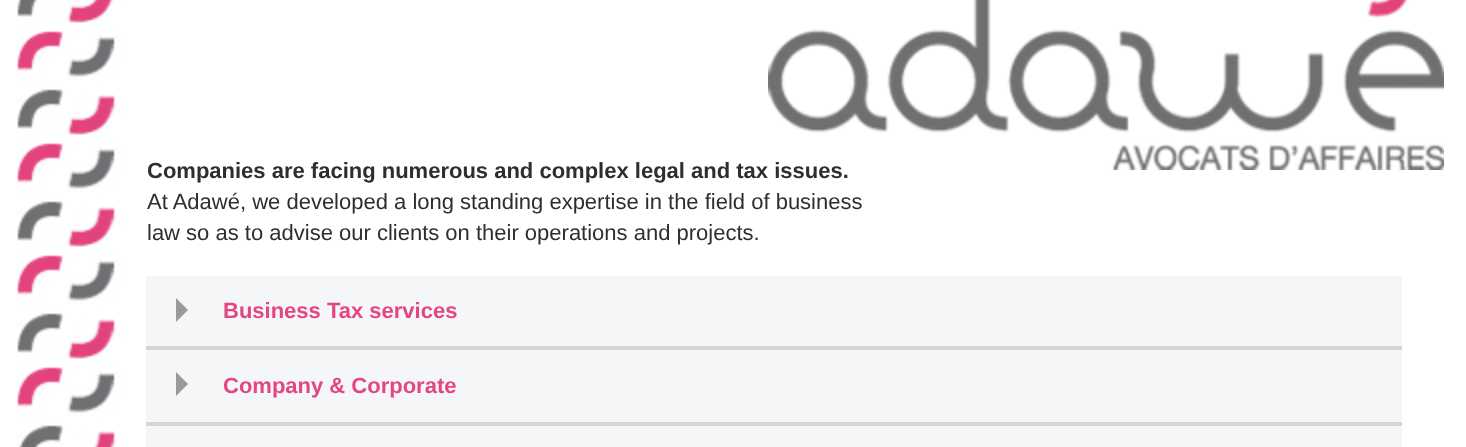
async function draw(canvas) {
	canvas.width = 1466;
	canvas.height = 447;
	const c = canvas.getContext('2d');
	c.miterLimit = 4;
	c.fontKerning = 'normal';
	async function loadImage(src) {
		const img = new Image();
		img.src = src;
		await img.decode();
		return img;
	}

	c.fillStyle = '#fff';
	c.fillRect(0, 0, 1466, 447);
	c.font = 'bold 22px Liberation Sans';
	c.fillStyle = '#2e2e2d';
	c.fillText('Companies are facing numerous and complex legal and tax issues.', 147, 178);
	c.drawImage(await loadImage('img1.png'), 768, 0, 676, 170);
	c.drawImage(await loadImage('img2.png'), 16, 0, 110, 447);
	c.font = '22px Liberation Sans';
	c.fillText('At Adawé, we developed a long standing expertise in the field of business', 147, 209);
	c.fillText('law so as to advise our clients on their operations and projects.', 147, 240);
	c.fillStyle = '#f5f6f7';
	c.fillRect(146, 276, 1256, 70);
	c.fillStyle = '#d4d4d4';
	c.fillRect(146, 346, 1256, 4);
	c.fillStyle = '#999a9c';
	c.beginPath();
	c.moveTo(176, 322);
	c.lineTo(176, 298);
	c.lineTo(188, 310);
	c.closePath();
	c.fill();
	c.font = 'bold 22px Liberation Sans';
	c.fillStyle = '#e34682';
	c.fillText('Business Tax services', 223, 318);
	c.fillStyle = '#f5f6f7';
	c.fillRect(146, 350, 1256, 72);
	c.fillStyle = '#d4d4d4';
	c.fillRect(146, 422, 1256, 4);
	c.fillStyle = '#999a9c';
	c.beginPath();
	c.moveTo(176, 396);
	c.lineTo(176, 372);
	c.lineTo(188, 384);
	c.closePath();
	c.fill();
	c.fillStyle = '#e34682';
	c.fillText('Company & Corporate', 223, 393);
	c.fillStyle = '#f5f6f7';
	c.fillRect(146, 426, 1256, 21);
}

draw(document.querySelector('canvas'));
